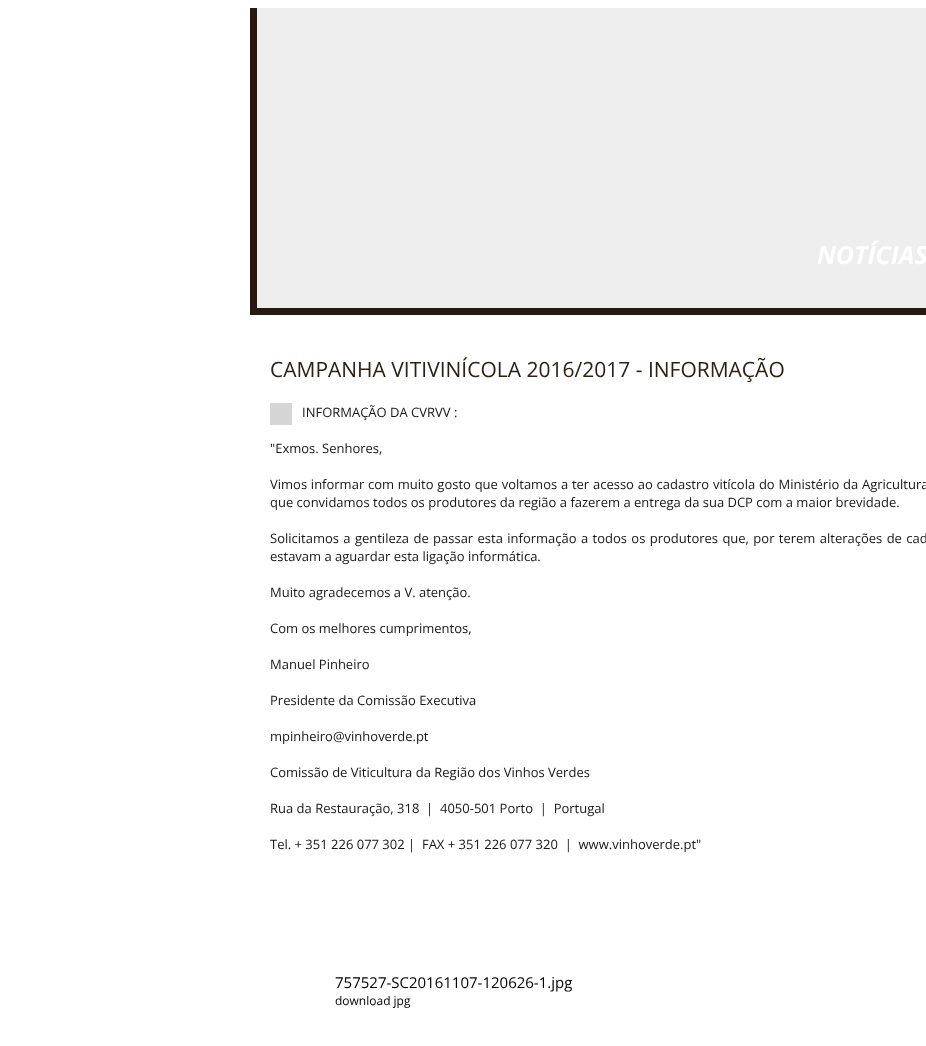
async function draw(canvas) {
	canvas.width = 926;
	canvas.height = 1046;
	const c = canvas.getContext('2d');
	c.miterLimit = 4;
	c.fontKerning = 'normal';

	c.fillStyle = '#fff';
	c.fillRect(0, 0, 926, 1046);
	for (const [x, y, w, h, color] of [
		[257, 8, 669, 300, '#eee'],
		[250, 308, 676, 7, '#251a0d'],
		[250, 8, 7, 307, '#251a0d'],
	]) {
		c.fillStyle = color;
		c.fillRect(x, y, w, h);
	}
	c.font = 'italic bold 25px Open Sans';
	c.fillStyle = '#fff';
	c.fillText('NOTÍCIAS', 817, 264);
	c.font = '21px Open Sans';
	c.fillStyle = '#2f2112';
	c.fillText('CAMPANHA VITIVINÍCOLA 2016/2017 - INFORMAÇÃO', 270, 377);
	c.fillStyle = '#d5d5d5';
	c.fillRect(270, 403, 22, 22);
	c.font = '13px Open Sans';
	c.fillStyle = '#161615';
	c.fillText('INFORMAÇÃO DA CVRVV :', 302, 417);
	c.fillText('"Exmos. Senhores,', 270, 453);
	c.wordSpacing = '0.4px';
	c.fillText('Vimos informar com muito gosto que voltamos a ter acesso ao cadastro vitícola do Ministério da Agricultura', 270, 489);
	c.wordSpacing = '0px';
	c.fillText('que convidamos todos os produtores da região a fazerem a entrega da sua DCP com a maior brevidade.', 270, 507);
	c.wordSpacing = '1px';
	c.fillText('Solicitamos a gentileza de passar esta informação a todos os produtores que, por terem alterações de cad', 270, 543);
	c.wordSpacing = '0px';
	for (const [text, x, y] of [
		['estavam a aguardar esta ligação informática.', 270, 561],
		['Muito agradecemos a V. atenção.', 270, 597],
		['Com os melhores cumprimentos,', 270, 633],
		['Manuel Pinheiro', 270, 669],
		['Presidente da Comissão Executiva', 270, 705],
		['mpinheiro@vinhoverde.pt', 270, 741],
		['Comissão de Viticultura da Região dos Vinhos Verdes', 270, 777],
		['Rua da Restauração, 318  |  4050-501 Porto  |  Portugal', 270, 813],
		['Tel. + 351 226 077 302 |  FAX + 351 226 077 320  |  www.vinhoverde.pt"', 270, 849],
	]) {
		c.fillText(text, x, y);
	}
	c.font = '15px Open Sans';
	c.fillStyle = '#000';
	c.fillText('757527-SC20161107-120626-1.jpg', 335, 988);
	c.font = '12px Open Sans';
	c.fillText('download jpg', 335, 1005);
}

draw(document.querySelector('canvas'));
